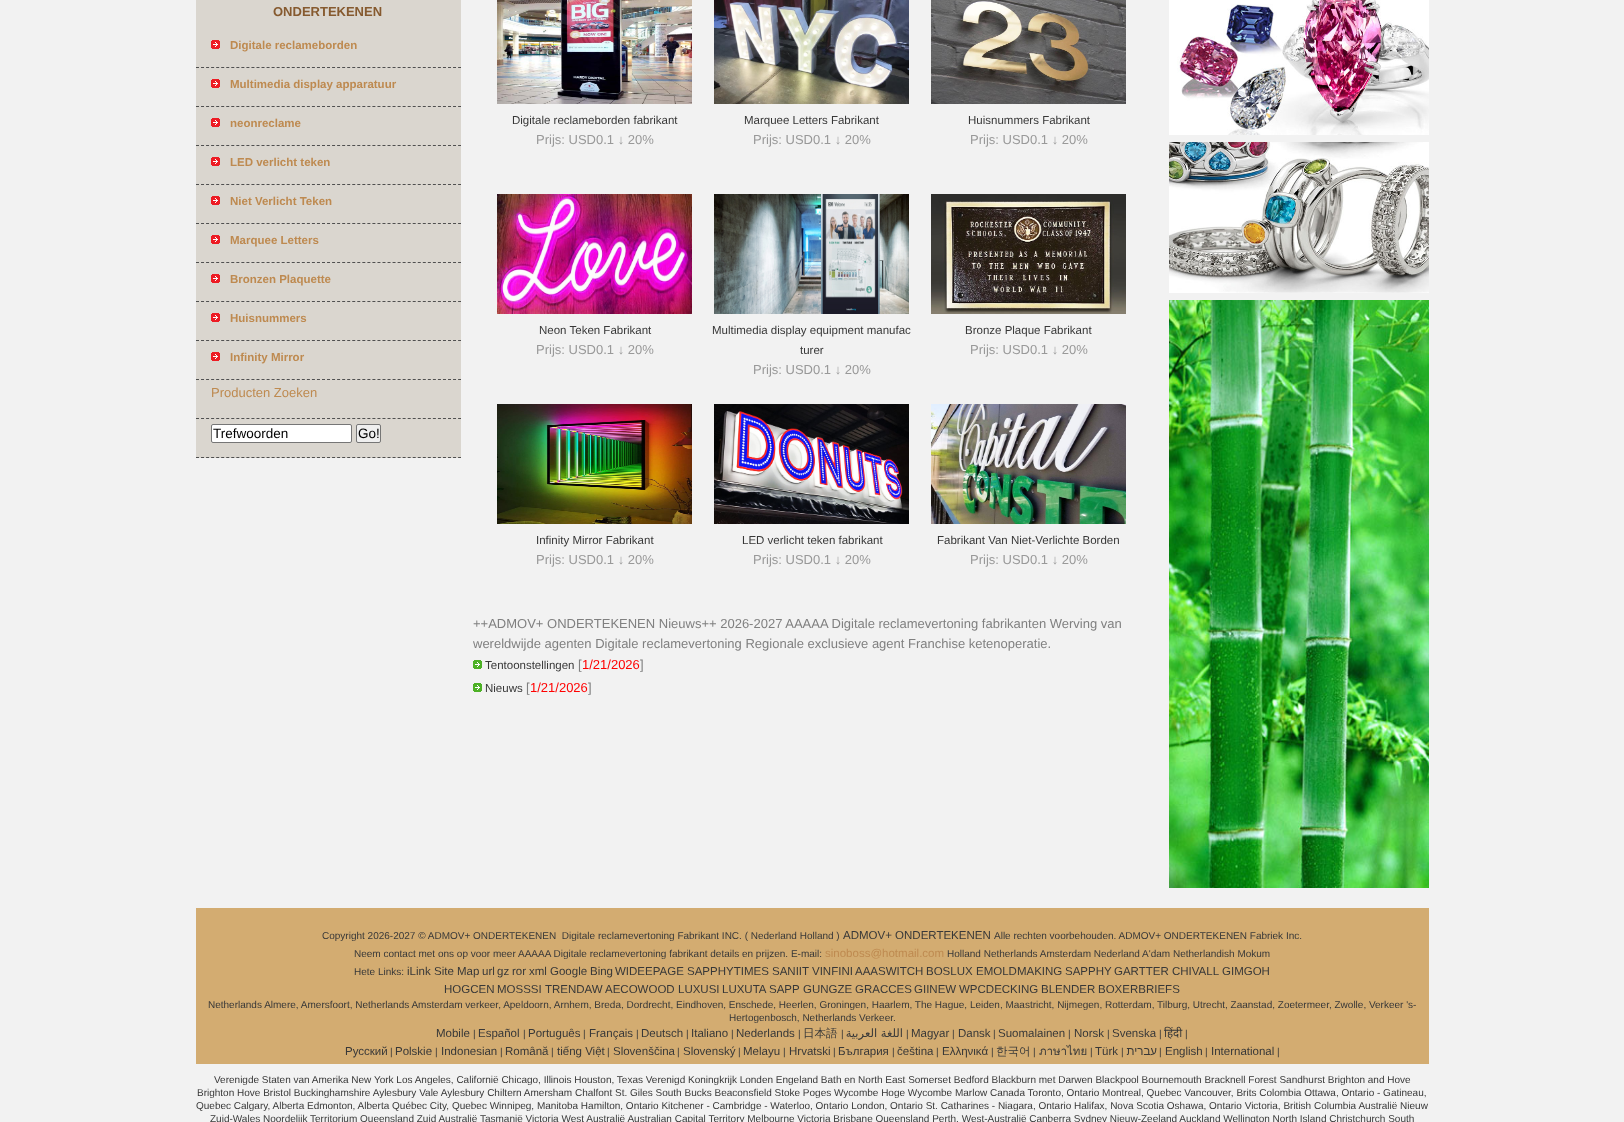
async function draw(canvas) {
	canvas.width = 1624;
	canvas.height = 1122;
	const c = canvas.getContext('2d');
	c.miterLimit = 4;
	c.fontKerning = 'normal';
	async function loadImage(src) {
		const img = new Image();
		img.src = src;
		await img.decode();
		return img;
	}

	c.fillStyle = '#f2f2f2';
	c.fillRect(0, 0, 1624, 1122);
	c.fillStyle = '#dad6cf';
	c.fillRect(196, 0, 265, 458);
	c.font = 'bold 13px Liberation Sans';
	c.fillStyle = '#865a2f';
	c.fillText('ONDERTEKENEN', 273, 16);
	c.beginPath();
	c.moveTo(196, 67.5);
	c.lineTo(461, 67.5);
	c.strokeStyle = '#505050';
	c.setLineDash([3, 2.04]);
	c.stroke();
	c.drawImage(await loadImage('img1.png'), 211, 40, 9, 9);
	c.font = 'bold 11.5px Liberation Sans';
	c.fillStyle = '#be8a50';
	c.fillText('Digitale reclameborden', 230, 49);
	c.beginPath();
	c.moveTo(196, 106.5);
	c.lineTo(461, 106.5);
	c.stroke();
	c.drawImage(await loadImage('img1.png'), 211, 79, 9, 9);
	c.fillText('Multimedia display apparatuur', 230, 88);
	c.beginPath();
	c.moveTo(196, 145.5);
	c.lineTo(461, 145.5);
	c.stroke();
	c.drawImage(await loadImage('img1.png'), 211, 118, 9, 9);
	c.fillText('neonreclame', 230, 127);
	c.beginPath();
	c.moveTo(196, 184.5);
	c.lineTo(461, 184.5);
	c.stroke();
	c.drawImage(await loadImage('img1.png'), 211, 157, 9, 9);
	c.fillText('LED verlicht teken', 230, 166);
	c.beginPath();
	c.moveTo(196, 223.5);
	c.lineTo(461, 223.5);
	c.stroke();
	c.drawImage(await loadImage('img1.png'), 211, 196, 9, 9);
	c.fillText('Niet Verlicht Teken', 230, 205);
	c.beginPath();
	c.moveTo(196, 262.5);
	c.lineTo(461, 262.5);
	c.stroke();
	c.drawImage(await loadImage('img1.png'), 211, 235, 9, 9);
	c.fillText('Marquee Letters', 230, 244);
	c.beginPath();
	c.moveTo(196, 301.5);
	c.lineTo(461, 301.5);
	c.stroke();
	c.drawImage(await loadImage('img1.png'), 211, 274, 9, 9);
	c.fillText('Bronzen Plaquette', 230, 283);
	c.beginPath();
	c.moveTo(196, 340.5);
	c.lineTo(461, 340.5);
	c.stroke();
	c.drawImage(await loadImage('img1.png'), 211, 313, 9, 9);
	c.fillText('Huisnummers', 230, 322);
	c.beginPath();
	c.moveTo(196, 379.5);
	c.lineTo(461, 379.5);
	c.stroke();
	c.drawImage(await loadImage('img1.png'), 211, 352, 9, 9);
	c.fillText('Infinity Mirror', 230, 361);
	c.beginPath();
	c.moveTo(196, 418.5);
	c.lineTo(461, 418.5);
	c.stroke();
	c.font = '13px Liberation Sans';
	c.fillText('Producten Zoeken', 211, 397);
	c.beginPath();
	c.moveTo(196, 457.5);
	c.lineTo(461, 457.5);
	c.stroke();
	c.fillStyle = '#fff';
	c.beginPath();
	c.roundRect(211.5, 424.5, 140, 18, 1.5);
	c.fill();
	c.strokeStyle = '#767676';
	c.setLineDash([]);
	c.stroke();
	c.font = '13.5px Liberation Sans';
	c.fillStyle = '#000';
	c.fillText('Trefwoorden', 213, 438);
	c.fillStyle = '#efefef';
	c.beginPath();
	c.roundRect(356.5, 424.5, 24, 18, 1.5);
	c.fill();
	c.stroke();
	c.fillStyle = '#000';
	c.fillText('Go!', 358, 438);
	c.drawImage(await loadImage('img2.png'), 497, 0, 195, 104);
	c.font = '11.5px Liberation Sans';
	c.fillStyle = '#383838';
	c.fillText('Digitale reclameborden fabrikant', 512, 124);
	c.font = '13px Liberation Sans';
	c.fillStyle = '#999';
	c.fillText('Prijs: USD0.1 ↓ 20%', 536, 144);
	c.drawImage(await loadImage('img3.png'), 714, 0, 195, 104);
	c.font = '11.5px Liberation Sans';
	c.fillStyle = '#383838';
	c.fillText('Marquee Letters Fabrikant', 744, 124);
	c.font = '13px Liberation Sans';
	c.fillStyle = '#999';
	c.fillText('Prijs: USD0.1 ↓ 20%', 753, 144);
	c.drawImage(await loadImage('img4.png'), 931, 0, 195, 104);
	c.font = '11.5px Liberation Sans';
	c.fillStyle = '#383838';
	c.fillText('Huisnummers Fabrikant', 968, 124);
	c.font = '13px Liberation Sans';
	c.fillStyle = '#999';
	c.fillText('Prijs: USD0.1 ↓ 20%', 970, 144);
	c.drawImage(await loadImage('img5.png'), 497, 194, 195, 120);
	c.font = '11.5px Liberation Sans';
	c.fillStyle = '#383838';
	c.fillText('Neon Teken Fabrikant', 539, 334);
	c.font = '13px Liberation Sans';
	c.fillStyle = '#999';
	c.fillText('Prijs: USD0.1 ↓ 20%', 536, 354);
	c.drawImage(await loadImage('img6.png'), 714, 194, 195, 120);
	c.font = '11.5px Liberation Sans';
	c.fillStyle = '#383838';
	c.fillText('Multimedia display equipment manufac', 712, 334);
	c.fillText('turer', 800, 354);
	c.font = '13px Liberation Sans';
	c.fillStyle = '#999';
	c.fillText('Prijs: USD0.1 ↓ 20%', 753, 374);
	c.drawImage(await loadImage('img7.png'), 931, 194, 195, 120);
	c.font = '11.5px Liberation Sans';
	c.fillStyle = '#383838';
	c.fillText('Bronze Plaque Fabrikant', 965, 334);
	c.font = '13px Liberation Sans';
	c.fillStyle = '#999';
	c.fillText('Prijs: USD0.1 ↓ 20%', 970, 354);
	c.drawImage(await loadImage('img8.png'), 497, 404, 195, 120);
	c.font = '11.5px Liberation Sans';
	c.fillStyle = '#383838';
	c.fillText('Infinity Mirror Fabrikant', 536, 544);
	c.font = '13px Liberation Sans';
	c.fillStyle = '#999';
	c.fillText('Prijs: USD0.1 ↓ 20%', 536, 564);
	c.drawImage(await loadImage('img9.png'), 714, 404, 195, 120);
	c.font = '11.5px Liberation Sans';
	c.fillStyle = '#383838';
	c.fillText('LED verlicht teken fabrikant', 742, 544);
	c.font = '13px Liberation Sans';
	c.fillStyle = '#999';
	c.fillText('Prijs: USD0.1 ↓ 20%', 753, 564);
	c.drawImage(await loadImage('img10.png'), 931, 404, 195, 120);
	c.font = '11.5px Liberation Sans';
	c.fillStyle = '#383838';
	c.fillText('Fabrikant Van Niet-Verlichte Borden', 937, 544);
	c.font = '13px Liberation Sans';
	c.fillStyle = '#999';
	c.fillText('Prijs: USD0.1 ↓ 20%', 970, 564);
	c.fillStyle = '#808080';
	c.fillText('++ADMOV+ ONDERTEKENEN Nieuws++ 2026-2027 AAAAA Digitale reclamevertoning fabrikanten Werving van', 473, 628);
	c.fillText('wereldwijde agenten Digitale reclamevertoning Regionale exclusieve agent Franchise ketenoperatie.', 473, 648);
	c.drawImage(await loadImage('img11.png'), 473, 660, 9, 9);
	c.font = '11.5px Liberation Sans';
	c.fillStyle = '#383838';
	c.fillText('Tentoonstellingen', 485, 669);
	c.font = '13px Liberation Sans';
	c.fillStyle = '#808080';
	c.fillText('[', 578, 669);
	c.fillStyle = '#f00';
	c.fillText('1/21/2026', 582, 669);
	c.fillStyle = '#808080';
	c.fillText(']', 640, 669);
	c.drawImage(await loadImage('img11.png'), 473, 683, 9, 9);
	c.font = '11.5px Liberation Sans';
	c.fillStyle = '#383838';
	c.fillText('Nieuws', 485, 692);
	c.font = '13px Liberation Sans';
	c.fillStyle = '#808080';
	c.fillText('[', 526, 692);
	c.fillStyle = '#f00';
	c.fillText('1/21/2026', 530, 692);
	c.fillStyle = '#808080';
	c.fillText(']', 588, 692);
	c.drawImage(await loadImage('img12.png'), 1169, 0, 260, 135);
	c.drawImage(await loadImage('img13.png'), 1169, 142, 260, 151);
	c.drawImage(await loadImage('img14.png'), 1169, 300, 260, 588);
	c.fillStyle = '#d3ac71';
	c.fillRect(196, 908, 1233, 156);
	c.font = '10px Liberation Sans';
	c.fillStyle = '#383838';
	c.fillText('Copyright 2026-2027 © ADMOV+ ONDERTEKENEN  Digitale reclamevertoning Fabrikant INC. ( Nederland Holland )', 322, 939);
	c.font = '11.5px Liberation Sans';
	c.fillText('ADMOV+ ONDERTEKENEN', 843, 939);
	c.font = '10px Liberation Sans';
	c.fillText('Alle rechten voorbehouden. ADMOV+ ONDERTEKENEN Fabriek Inc.', 994, 939);
	c.fillText('Neem contact met ons op voor meer AAAAA Digitale reclamevertoning fabrikant details en prijzen. E-mail:', 354, 957);
	c.font = '11.5px Liberation Sans';
	c.fillStyle = '#be8a50';
	c.fillText('sinoboss@hotmail.com', 825, 957);
	c.font = '10px Liberation Sans';
	c.fillStyle = '#383838';
	c.fillText('Holland Netherlands Amsterdam Nederland A\'dam Netherlandish Mokum', 947, 957);
	c.fillText('Hete Links:', 354, 975);
	c.font = '11.5px Liberation Sans';
	for (const [text, x, y] of [
		['iLink', 407, 975],
		['Site Map', 434, 975],
		['url', 482, 975],
		['gz', 497, 975],
		['ror', 512, 975],
		['xml', 529, 975],
		['Google', 550, 975],
		['Bing', 590, 975],
		['WIDEEPAGE', 615, 975],
		['SAPPHYTIMES', 687, 975],
		['SANIIT', 772, 975],
		['VINFINI', 812, 975],
		['AAASWITCH', 855, 975],
		['BOSLUX', 926, 975],
		['EMOLDMAKING', 976, 975],
		['SAPPHY', 1065, 975],
		['GARTTER', 1114, 975],
		['CHIVALL', 1172, 975],
		['GIMGOH', 1222, 975],
		['HOGCEN', 444, 993],
		['MOSSSI', 497, 993],
		['TRENDAW', 545, 993],
		['AECOWOOD', 605, 993],
		['LUXUSI', 678, 993],
		['LUXUTA', 722, 993],
		['SAPP', 769, 993],
		['GUNGZE', 803, 993],
		['GRACCES', 855, 993],
		['GIINEW', 914, 993],
		['WPCDECKING', 959, 993],
		['BLENDER', 1041, 993],
		['BOXERBRIEFS', 1098, 993],
	]) {
		c.fillText(text, x, y);
	}
	c.font = '10px Liberation Sans';
	c.fillText('Netherlands Almere, Amersfoort, Netherlands Amsterdam verkeer, Apeldoorn, Arnhem, Breda, Dordrecht, Eindhoven, Enschede, Heerlen, Groningen, Haarlem, The Hague, Leiden, Maastricht, Nijmegen, Rotterdam, Tilburg, Utrecht, Zaanstad, Zoetermeer, Zwolle, Verkeer \'s-', 208, 1008);
	c.fillText('Hertogenbosch, Netherlands Verkeer.', 729, 1021);
	c.font = '11.5px Liberation Sans';
	c.fillText('Mobile', 436, 1037);
	c.font = '10px Liberation Sans';
	c.fillText('|', 473, 1037);
	c.font = '11.5px Liberation Sans';
	c.fillText('Español', 478, 1037);
	c.font = '10px Liberation Sans';
	c.fillText('|', 523, 1037);
	c.font = '11.5px Liberation Sans';
	c.fillText('Português', 528, 1037);
	c.font = '10px Liberation Sans';
	c.fillText('|', 583, 1037);
	c.font = '11.5px Liberation Sans';
	c.fillText('Français', 589, 1037);
	c.font = '10px Liberation Sans';
	c.fillText('|', 636, 1037);
	c.font = '11.5px Liberation Sans';
	c.fillText('Deutsch', 641, 1037);
	c.font = '10px Liberation Sans';
	c.fillText('|', 686, 1037);
	c.font = '11.5px Liberation Sans';
	c.fillText('Italiano', 691, 1037);
	c.font = '10px Liberation Sans';
	c.fillText('|', 731, 1037);
	c.font = '11.5px Liberation Sans';
	c.fillText('Nederlands', 736, 1037);
	c.font = '10px Liberation Sans';
	c.fillText('|', 798, 1037);
	c.font = '500 11.5px WenQuanYi Zen Hei';
	c.fillText('日本語', 803, 1037);
	c.font = '10px Liberation Sans';
	c.fillText('|', 841, 1037);
	c.direction = 'rtl';
	c.font = '11.5px DejaVu Sans';
	c.fillText('اللغة العربية', 903, 1037);
	c.direction = 'ltr';
	c.font = '10px Liberation Sans';
	c.fillText('|', 906, 1037);
	c.font = '11.5px Liberation Sans';
	c.fillText('Magyar', 911, 1037);
	c.font = '10px Liberation Sans';
	c.fillText('|', 952, 1037);
	c.font = '11.5px Liberation Sans';
	c.fillText('Dansk', 958, 1037);
	c.font = '10px Liberation Sans';
	c.fillText('|', 993, 1037);
	c.font = '11.5px Liberation Sans';
	c.fillText('Suomalainen', 998, 1037);
	c.font = '10px Liberation Sans';
	c.fillText('|', 1068, 1037);
	c.font = '11.5px Liberation Sans';
	c.fillText('Norsk', 1074, 1037);
	c.font = '10px Liberation Sans';
	c.fillText('|', 1107, 1037);
	c.font = '11.5px Liberation Sans';
	c.fillText('Svenska', 1112, 1037);
	c.font = '10px Liberation Sans';
	c.fillText('|', 1159, 1037);
	c.font = '11.5px Noto Sans';
	c.fillText('हिंदी', 1164, 1037);
	c.font = '10px Liberation Sans';
	c.fillText('|', 1185, 1037);
	c.font = '11.5px Liberation Sans';
	c.fillText('Pусский', 345, 1055);
	c.font = '10px Liberation Sans';
	c.fillText('|', 390, 1055);
	c.font = '11.5px Liberation Sans';
	c.fillText('Polskie', 395, 1055);
	c.font = '10px Liberation Sans';
	c.fillText('|', 435, 1055);
	c.font = '11.5px Liberation Sans';
	c.fillText('Indonesian', 441, 1055);
	c.font = '10px Liberation Sans';
	c.fillText('|', 500, 1055);
	c.font = '11.5px Liberation Sans';
	c.fillText('Română', 505, 1055);
	c.font = '10px Liberation Sans';
	c.fillText('|', 551, 1055);
	c.font = '11.5px Liberation Sans';
	c.fillText('tiếng Việt', 557, 1055);
	c.font = '10px Liberation Sans';
	c.fillText('|', 607, 1055);
	c.font = '11.5px Liberation Sans';
	c.fillText('Slovenščina', 613, 1055);
	c.font = '10px Liberation Sans';
	c.fillText('|', 677, 1055);
	c.font = '11.5px Liberation Sans';
	c.fillText('Slovenský', 683, 1055);
	c.font = '10px Liberation Sans';
	c.fillText('|', 738, 1055);
	c.font = '11.5px Liberation Sans';
	c.fillText('Melayu', 743, 1055);
	c.font = '10px Liberation Sans';
	c.fillText('|', 783, 1055);
	c.font = '11.5px Liberation Sans';
	c.fillText('Hrvatski', 789, 1055);
	c.font = '10px Liberation Sans';
	c.fillText('|', 833, 1055);
	c.font = '11.5px Liberation Sans';
	c.fillText('България', 838, 1055);
	c.font = '10px Liberation Sans';
	c.fillText('|', 892, 1055);
	c.font = '11.5px Liberation Sans';
	c.fillText('čeština', 897, 1055);
	c.font = '10px Liberation Sans';
	c.fillText('|', 936, 1055);
	c.font = '11.5px Liberation Sans';
	c.fillText('Ελληνικά', 942, 1055);
	c.font = '10px Liberation Sans';
	c.fillText('|', 991, 1055);
	c.font = '500 11.5px WenQuanYi Zen Hei';
	c.fillText('한국어', 996, 1055);
	c.font = '10px Liberation Sans';
	c.fillText('|', 1033, 1055);
	c.font = '11.5px Loma';
	c.fillText('ภาษาไทย', 1039, 1055);
	c.font = '10px Liberation Sans';
	c.fillText('|', 1090, 1055);
	c.font = '11.5px Liberation Sans';
	c.fillText('Türk', 1095, 1055);
	c.font = '10px Liberation Sans';
	c.fillText('|', 1121, 1055);
	c.direction = 'rtl';
	c.font = '11.5px Liberation Sans';
	c.fillText('עברית', 1157, 1055);
	c.direction = 'ltr';
	c.font = '10px Liberation Sans';
	c.fillText('|', 1159, 1055);
	c.font = '11.5px Liberation Sans';
	c.fillText('English', 1165, 1055);
	c.font = '10px Liberation Sans';
	c.fillText('|', 1205, 1055);
	c.font = '11.5px Liberation Sans';
	c.fillText('International', 1211, 1055);
	c.font = '10px Liberation Sans';
	for (const [text, x, y] of [
		['|', 1277, 1055],
		['Verenigde Staten van Amerika New York Los Angeles, Californië Chicago, Illinois Houston, Texas Verenigd Koningkrijk Londen Engeland Bath en North East Somerset Bedford Blackburn met Darwen Blackpool Bournemouth Bracknell Forest Sandhurst Brighton and Hove', 214, 1083],
		['Brighton Hove Bristol Buckinghamshire Aylesbury Vale Aylesbury Chiltern Amersham Chalfont St. Giles South Bucks Beaconsfield Stoke Poges Wycombe Hoge Wycombe Marlow Canada Toronto, Ontario Montreal, Quebec Vancouver, Brits Colombia Ottawa, Ontario - Gatineau,', 197, 1096],
		['Quebec Calgary, Alberta Edmonton, Alberta Québec City, Quebec Winnipeg, Manitoba Hamilton, Ontario Kitchener - Cambridge - Waterloo, Ontario London, Ontario St. Catharines - Niagara, Ontario Halifax, Nova Scotia Oshawa, Ontario Victoria, British Columbia Australië Nieuw', 196, 1109],
		['Zuid-Wales Noordelijk Territorium Queensland Zuid Australië Tasmanië Victoria West Australië Australian Capital Territory Melbourne Victoria Brisbane Queensland Perth, West-Australië Canberra Sydney Nieuw-Zeeland Auckland Wellington North Island Christchurch South', 210, 1122],
	]) {
		c.fillText(text, x, y);
	}
}

draw(document.querySelector('canvas'));
